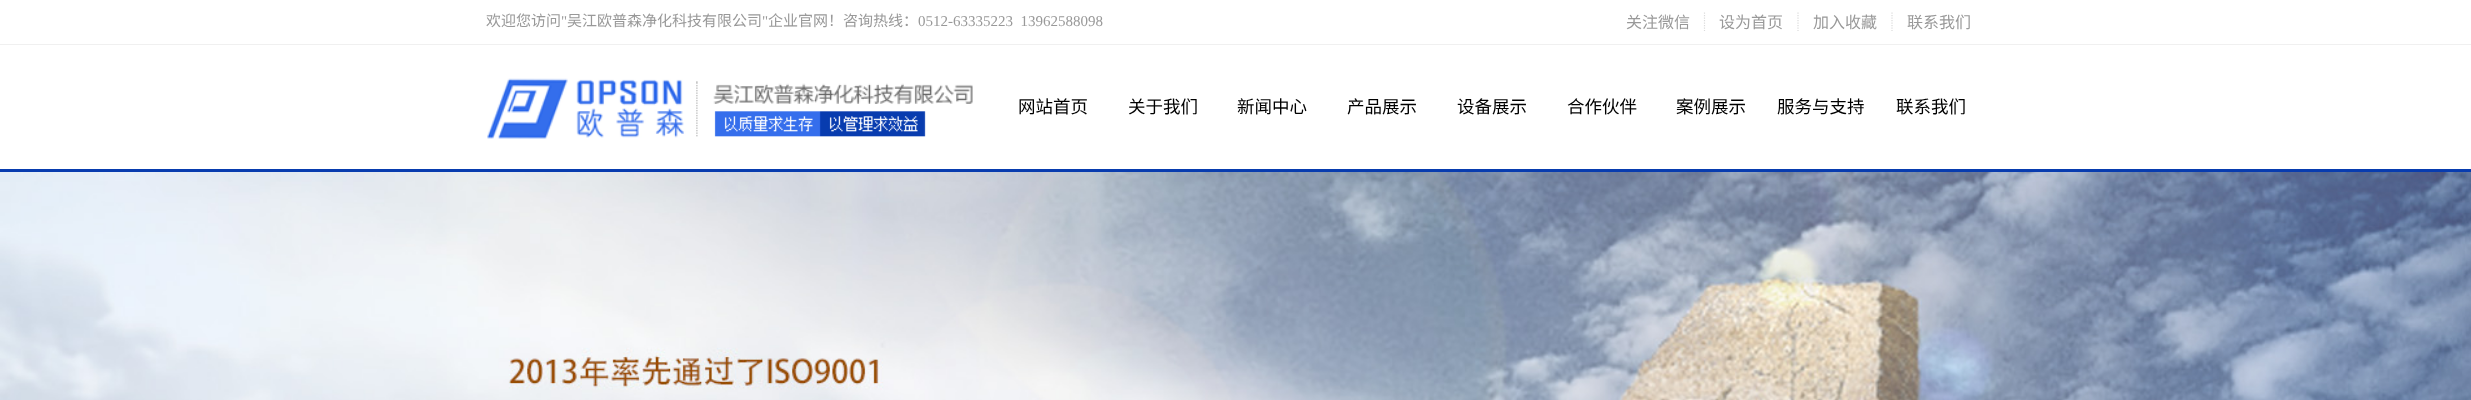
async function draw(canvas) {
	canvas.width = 2471;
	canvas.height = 400;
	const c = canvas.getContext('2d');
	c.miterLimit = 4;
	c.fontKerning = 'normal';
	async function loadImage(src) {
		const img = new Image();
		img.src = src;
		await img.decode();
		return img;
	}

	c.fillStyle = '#fff';
	c.fillRect(0, 0, 2471, 400);
	c.fillStyle = '#083caf';
	c.fillRect(0, 169, 2471, 3);
	c.fillStyle = '#f0f0f0';
	c.fillRect(0, 44, 2471, 1);
	c.font = '15px Noto Sans CJK SC';
	c.fillStyle = '#999';
	c.fillText('欢迎您访问', 486, 26);
	c.font = '15px Liberation Serif';
	c.fillText('"', 561, 26);
	c.font = '15px Noto Sans CJK SC';
	c.fillText('吴江欧普森净化科技有限公司', 567, 26);
	c.font = '15px Liberation Serif';
	c.fillText('"', 762, 26);
	c.font = '15px Noto Sans CJK SC';
	c.fillText('企业官网！咨询热线：', 768, 26);
	c.font = '15px Liberation Serif';
	c.fillText('0512-63335223  13962588098', 918, 26);
	c.font = '16px Noto Sans CJK SC';
	c.fillText('关注微信', 1626, 28);
	c.fillText('设为首页', 1719, 28);
	c.beginPath();
	c.moveTo(1704.5, 12.5);
	c.lineTo(1704.5, 31);
	c.strokeStyle = '#dbdbdb';
	c.lineWidth = 1.2;
	c.setLineDash([1.25, 1.25]);
	c.stroke();
	c.fillText('加入收藏', 1813, 28);
	c.beginPath();
	c.moveTo(1798, 12.5);
	c.lineTo(1798, 31);
	c.stroke();
	c.fillText('联系我们', 1907, 28);
	c.beginPath();
	c.moveTo(1892, 12.5);
	c.lineTo(1892, 31);
	c.stroke();
	c.drawImage(await loadImage('img1.png'), 487, 78, 486, 61);
	c.font = '17.5px Noto Sans CJK SC';
	c.fillStyle = '#000';
	for (const [text, x, y] of [
		['网站首页', 1018, 113],
		['关于我们', 1128, 113],
		['新闻中心', 1237, 113],
		['产品展示', 1347, 113],
		['设备展示', 1457, 113],
		['合作伙伴', 1567, 113],
		['案例展示', 1676, 113],
		['服务与支持', 1777, 113],
		['联系我们', 1896, 113],
	]) {
		c.fillText(text, x, y);
	}
	c.drawImage(await loadImage('img2.png'), 0, 172, 2471, 228);
}

draw(document.querySelector('canvas'));
